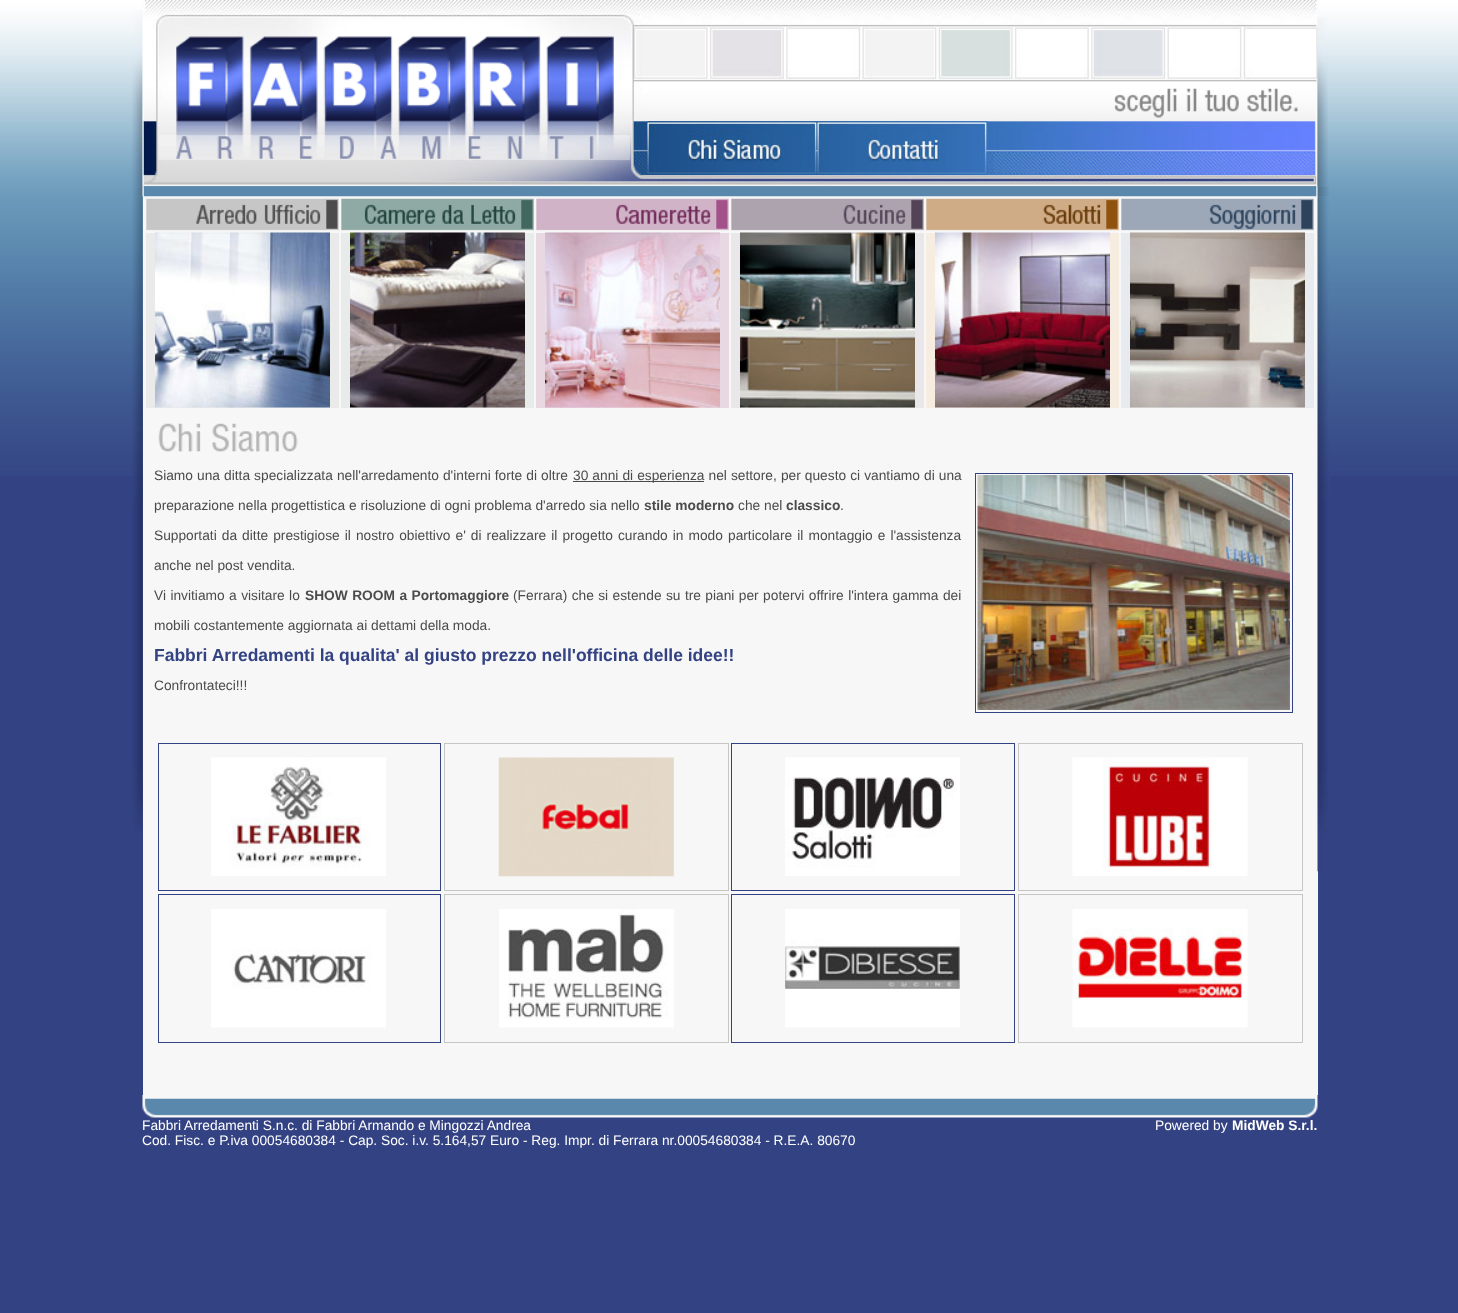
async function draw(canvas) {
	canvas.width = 1458;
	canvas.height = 1313;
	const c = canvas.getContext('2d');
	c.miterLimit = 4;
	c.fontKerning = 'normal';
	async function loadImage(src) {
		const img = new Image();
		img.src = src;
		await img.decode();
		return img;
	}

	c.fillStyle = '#334283';
	c.fillRect(0, 0, 1458, 1313);
	c.drawImage(await loadImage('img1.png'), 0, 0, 1458, 476);
	c.drawImage(await loadImage('img2.png'), 131, 10, 12, 177);
	c.drawImage(await loadImage('img3.png'), 142, 0, 1176, 187);
	c.drawImage(await loadImage('img4.png'), 158, 36, 473, 125);
	c.drawImage(await loadImage('img5.png'), 1114, 88, 184, 30);
	c.drawImage(await loadImage('img6.png'), 647, 121, 171, 54);
	c.drawImage(await loadImage('img7.png'), 817, 121, 171, 54);
	c.drawImage(await loadImage('img8.png'), 1317, 17, 11, 170);
	c.drawImage(await loadImage('img10.png'), 132, 196, 11, 636);
	c.fillStyle = '#f7f7f7';
	c.fillRect(143, 196, 1175, 899);
	c.drawImage(await loadImage('img33.png'), 1317, 196, 13, 676);
	c.drawImage(await loadImage('img9.png'), 132, 186, 1197, 11);
	c.drawImage(await loadImage('img11.png'), 146, 198, 193, 33);
	c.drawImage(await loadImage('img12.png'), 341, 198, 193, 33);
	c.drawImage(await loadImage('img13.png'), 536, 198, 193, 33);
	c.drawImage(await loadImage('img14.png'), 731, 198, 193, 33);
	c.drawImage(await loadImage('img15.png'), 926, 198, 193, 33);
	c.drawImage(await loadImage('img16.png'), 1121, 198, 193, 33);
	c.fillStyle = '#ebeaea';
	c.fillRect(146, 233, 193, 175);
	c.drawImage(await loadImage('img17.png'), 155, 232, 175, 176);
	c.fillStyle = '#e7ebea';
	c.fillRect(341, 233, 193, 175);
	c.drawImage(await loadImage('img18.png'), 350, 232, 175, 176);
	c.fillStyle = '#e7d8e2';
	c.fillRect(536, 233, 193, 175);
	c.drawImage(await loadImage('img19.png'), 545, 232, 175, 176);
	c.fillStyle = '#e9e7ea';
	c.fillRect(731, 233, 193, 175);
	c.drawImage(await loadImage('img20.png'), 740, 232, 175, 176);
	c.fillStyle = '#f6ece0';
	c.fillRect(926, 233, 193, 175);
	c.drawImage(await loadImage('img21.png'), 935, 232, 175, 176);
	c.fillStyle = '#e7eaef';
	c.fillRect(1121, 233, 193, 175);
	c.drawImage(await loadImage('img22.png'), 1130, 232, 175, 176);
	c.drawImage(await loadImage('img23.png'), 158, 423, 140, 29);
	c.wordSpacing = '0.25px';
	c.font = '13.75px Liberation Sans';
	c.fillStyle = '#4b4b4b';
	c.fillText('Siamo una ditta specializzata nell\'arredamento d\'interni forte di oltre', 154, 480);
	c.fillRect(573, 481, 131, 1);
	c.fillText('30 anni di esperienza nel settore, per questo ci vantiamo di una', 573, 480);
	c.strokeStyle = '#334283';
	c.strokeRect(975.5, 473.5, 317, 239);
	c.drawImage(await loadImage('img24.png'), 977, 475, 313, 235);
	c.wordSpacing = '0px';
	c.fillText('preparazione nella progettistica e risoluzione di ogni problema d\'arredo sia nello', 154, 510);
	c.font = 'bold 13.75px Liberation Sans';
	c.fillText('stile moderno', 644, 510);
	c.font = '13.75px Liberation Sans';
	c.fillText('che nel', 738, 510);
	c.font = 'bold 13.75px Liberation Sans';
	c.fillText('classico', 786, 510);
	c.font = '13.75px Liberation Sans';
	c.fillText('.', 840, 510);
	c.wordSpacing = '1.25px';
	c.fillText('Supportati da ditte prestigiose il nostro obiettivo e\' di realizzare il progetto curando in modo particolare il montaggio e l\'assistenza', 154, 540);
	c.wordSpacing = '0px';
	c.fillText('anche nel post vendita.', 154, 570);
	c.wordSpacing = '0.6px';
	c.fillText('Vi invitiamo a visitare lo', 154, 600);
	c.font = 'bold 13.75px Liberation Sans';
	c.fillText('SHOW ROOM a Portomaggiore', 305, 600);
	c.font = '13.75px Liberation Sans';
	c.fillText('(Ferrara) che si estende su tre piani per potervi offrire l\'intera gamma dei', 513, 600);
	c.wordSpacing = '0px';
	c.fillText('mobili costantemente aggiornata ai dettami della moda.', 154, 630);
	c.font = 'bold 17.5px Liberation Sans';
	c.fillStyle = '#334283';
	c.fillText('Fabbri Arredamenti la qualita\' al giusto prezzo nell\'officina delle idee!!', 154, 661);
	c.font = '13.75px Liberation Sans';
	c.fillStyle = '#4b4b4b';
	c.fillText('Confrontateci!!!', 154, 690);
	c.strokeRect(158.5, 743.5, 282, 147);
	c.drawImage(await loadImage('img25.png'), 211, 757, 175, 119);
	c.strokeStyle = '#c6c6c6';
	c.strokeRect(444.5, 743.5, 284, 147);
	c.drawImage(await loadImage('img26.png'), 498, 757, 176, 120);
	c.strokeStyle = '#334283';
	c.strokeRect(731.5, 743.5, 283, 147);
	c.drawImage(await loadImage('img27.png'), 785, 757, 175, 119);
	c.strokeStyle = '#c6c6c6';
	c.strokeRect(1018.5, 743.5, 284, 147);
	c.drawImage(await loadImage('img28.png'), 1072, 757, 176, 119);
	c.strokeStyle = '#334283';
	c.strokeRect(158.5, 894.5, 282, 148);
	c.drawImage(await loadImage('img29.png'), 211, 909, 175, 119);
	c.strokeStyle = '#c6c6c6';
	c.strokeRect(444.5, 894.5, 284, 148);
	c.drawImage(await loadImage('img30.png'), 499, 909, 175, 119);
	c.strokeStyle = '#334283';
	c.strokeRect(731.5, 894.5, 283, 148);
	c.drawImage(await loadImage('img31.png'), 785, 909, 175, 119);
	c.strokeStyle = '#c6c6c6';
	c.strokeRect(1018.5, 894.5, 284, 148);
	c.drawImage(await loadImage('img32.png'), 1072, 909, 176, 119);
	c.drawImage(await loadImage('img34.png'), 142, 1095, 1176, 23);
	c.fillStyle = '#fff';
	for (const [text, x, y] of [
		['Fabbri Arredamenti S.n.c. di Fabbri Armando e Mingozzi Andrea', 142, 1130],
		['Cod. Fisc. e P.iva 00054680384 - Cap. Soc. i.v. 5.164,57 Euro - Reg. Impr. di Ferrara nr.00054680384 - R.E.A. 80670', 142, 1145],
		['Powered by', 1155, 1130],
	]) {
		c.fillText(text, x, y);
	}
	c.font = 'bold 13.75px Liberation Sans';
	c.fillText('MidWeb S.r.l.', 1232, 1130);
}

draw(document.querySelector('canvas'));
